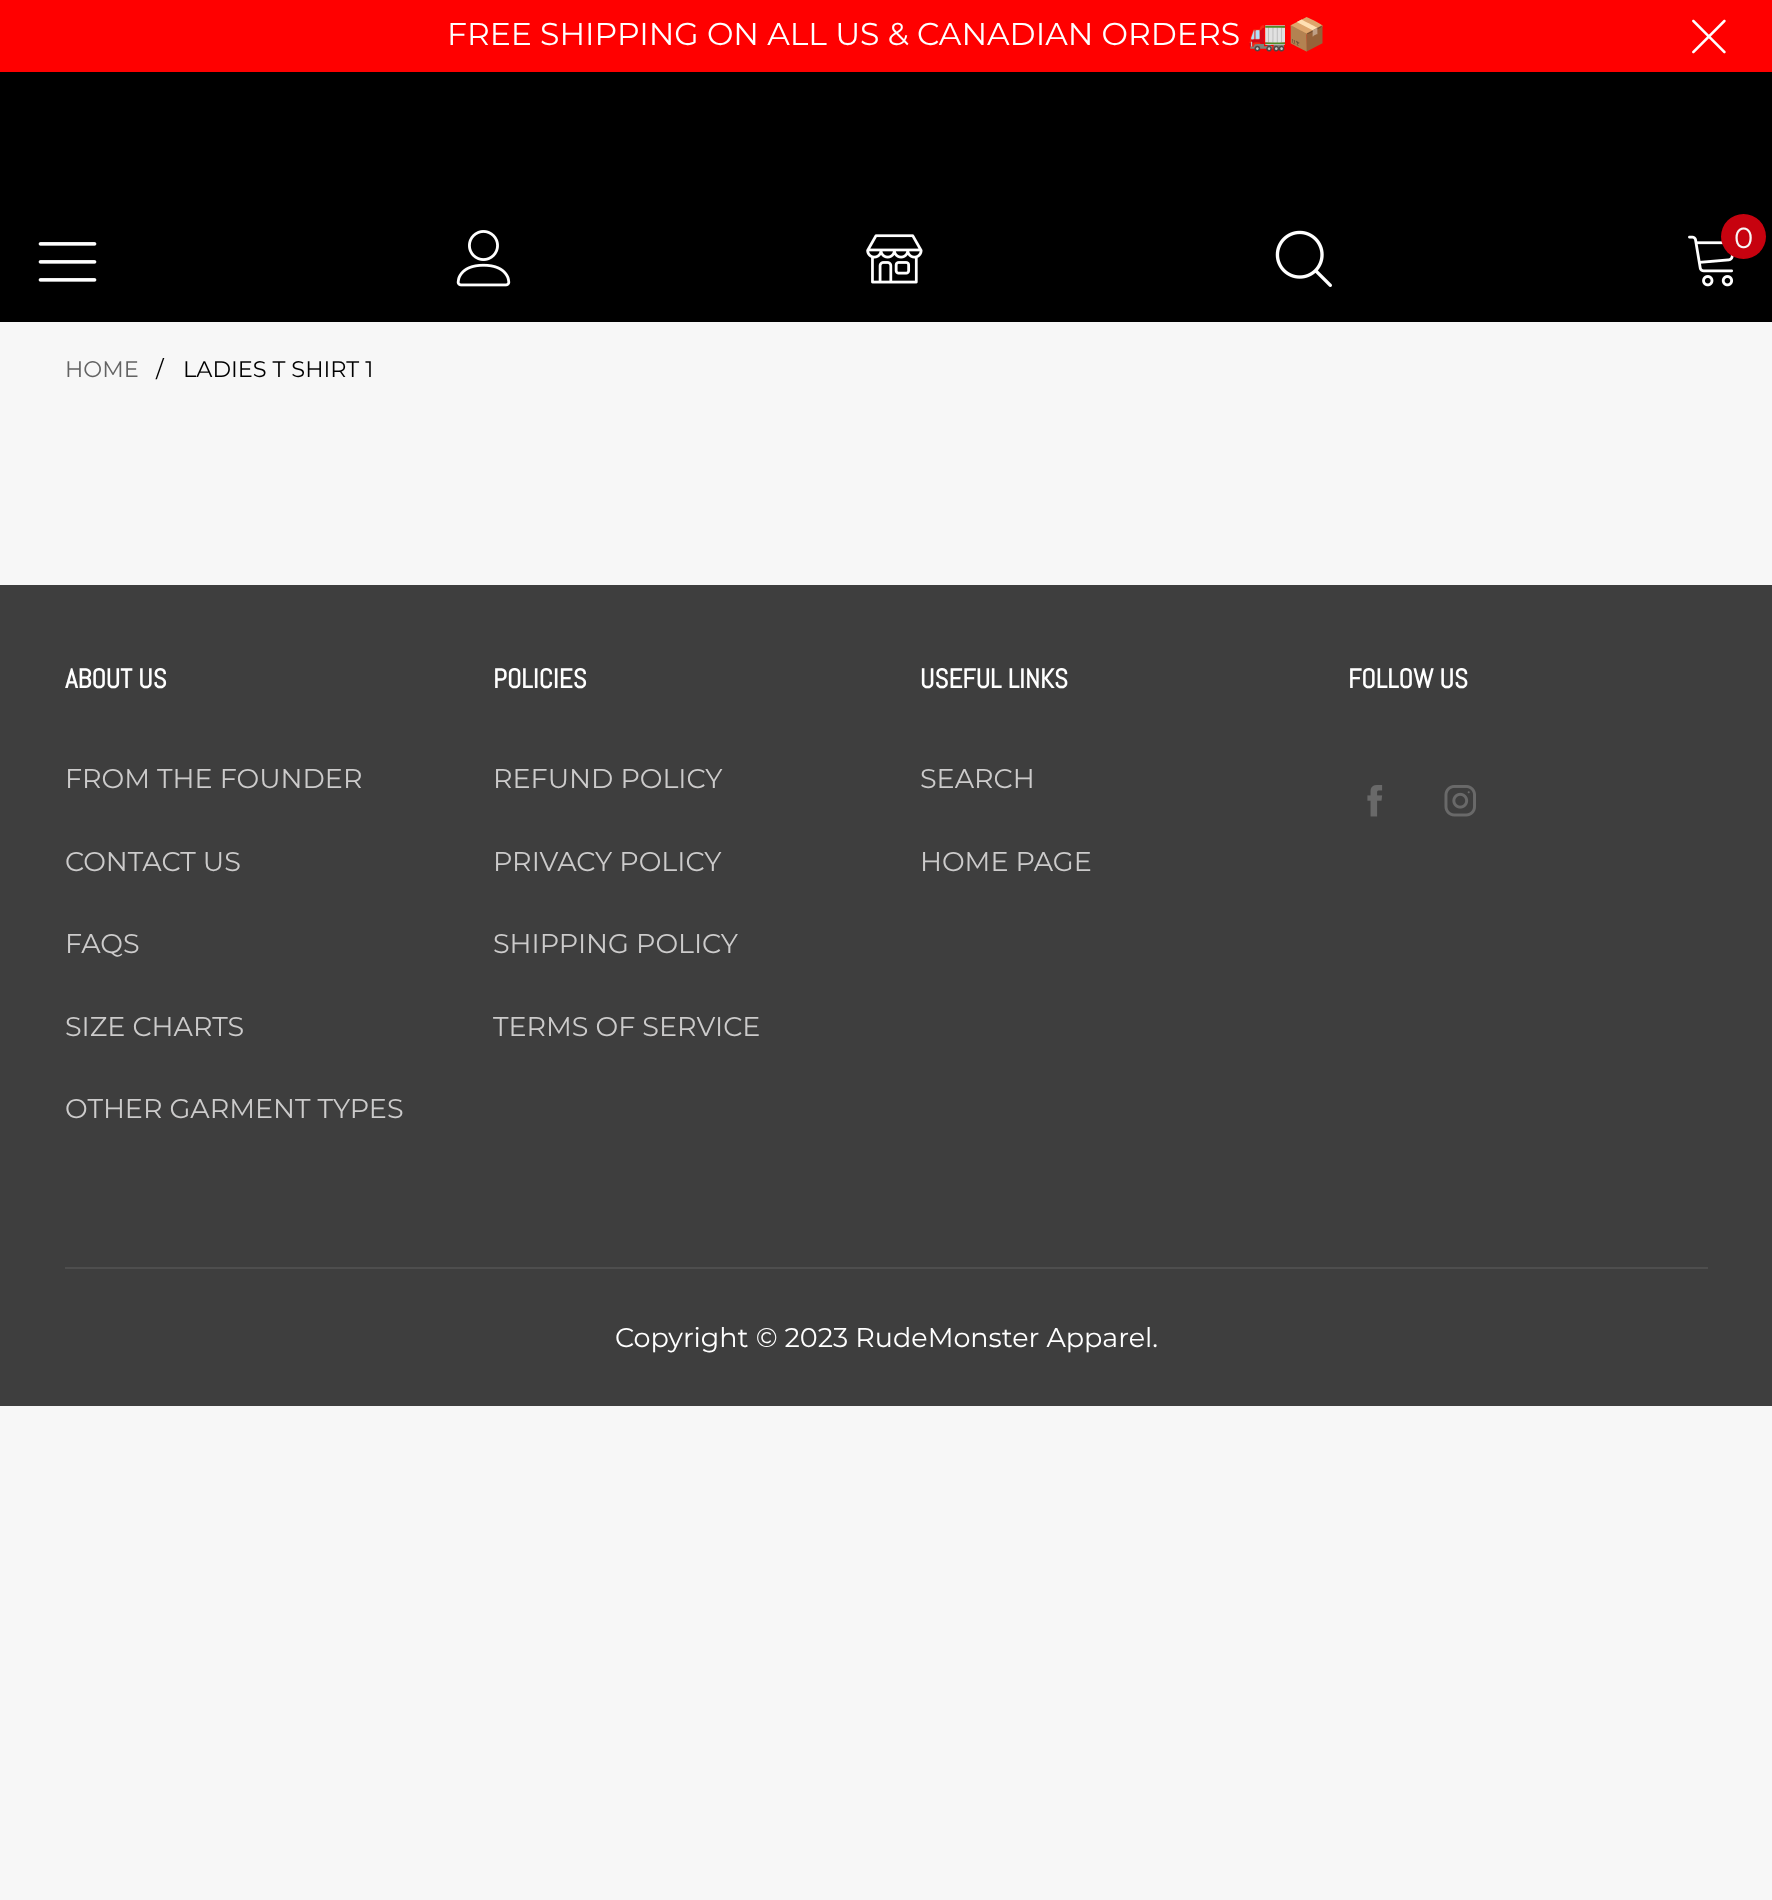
async function draw(canvas) {
	canvas.width = 1772;
	canvas.height = 1900;
	const c = canvas.getContext('2d');
	c.miterLimit = 4;
	c.fontKerning = 'normal';
	async function loadImage(src) {
		const img = new Image();
		img.src = src;
		await img.decode();
		return img;
	}

	c.fillStyle = '#f7f7f7';
	c.fillRect(0, 0, 1772, 1900);
	c.fillStyle = '#f00';
	c.fillRect(0, 0, 1772, 72);
	c.font = '31.5px Montserrat';
	c.fillStyle = '#fff';
	c.fillText('FREE SHIPPING ON ALL US & CANADIAN ORDERS', 447, 45);
	c.font = '31.5px Noto Color Emoji';
	c.fillText('🚛📦', 1248, 45);
	c.drawImage(await loadImage('img1.png'), 1692, 19, 34, 35);
	c.fillStyle = '#000';
	c.fillRect(0, 72, 1772, 250);
	c.drawImage(await loadImage('img2.png'), 38, 242, 59, 40);
	c.drawImage(await loadImage('img3.png'), 456, 230, 55, 57);
	c.drawImage(await loadImage('img4.png'), 866, 234, 57, 50);
	c.drawImage(await loadImage('img5.png'), 1275, 230, 57, 57);
	c.drawImage(await loadImage('img6.png'), 1688, 235, 46, 52);
	c.fillStyle = '#c7020f';
	c.beginPath();
	c.arc(1743.5, 236.5, 22.5, 0, 2 * Math.PI);
	c.fill();
	c.font = '29px Montserrat';
	c.fillStyle = '#f7f7f7';
	c.fillText('0', 1734, 248);
	c.font = '22.5px Montserrat';
	c.fillStyle = '#636363';
	c.fillText('HOME', 65, 377);
	c.fillStyle = '#000';
	c.fillText('/', 156, 377);
	c.fillText('LADIES T SHIRT 1', 183, 377);
	c.fillStyle = '#3e3e3e';
	c.fillRect(0, 585, 1772, 821);
	c.font = 'bold 27px Abel';
	c.fillStyle = '#fff';
	c.fillText('ABOUT US', 65, 688);
	c.font = '27px Montserrat';
	c.fillStyle = '#cccbcb';
	for (const [text, x, y] of [
		['FROM THE FOUNDER', 65, 788],
		['CONTACT US', 65, 871],
		['FAQS', 65, 953],
		['SIZE CHARTS', 65, 1036],
		['OTHER GARMENT TYPES', 65, 1118],
	]) {
		c.fillText(text, x, y);
	}
	c.font = 'bold 27px Abel';
	c.fillStyle = '#fff';
	c.fillText('POLICIES', 493, 688);
	c.font = '27px Montserrat';
	c.fillStyle = '#cccbcb';
	for (const [text, x, y] of [
		['REFUND POLICY', 493, 788],
		['PRIVACY POLICY', 493, 871],
		['SHIPPING POLICY', 493, 953],
		['TERMS OF SERVICE', 493, 1036],
	]) {
		c.fillText(text, x, y);
	}
	c.font = 'bold 27px Abel';
	c.fillStyle = '#fff';
	c.fillText('USEFUL LINKS', 920, 688);
	c.font = '27px Montserrat';
	c.fillStyle = '#cccbcb';
	c.fillText('SEARCH', 920, 788);
	c.fillText('HOME PAGE', 920, 871);
	c.font = 'bold 27px Abel';
	c.fillStyle = '#fff';
	c.fillText('FOLLOW US', 1348, 688);
	c.drawImage(await loadImage('img7.png'), 1367, 785, 16, 32);
	c.drawImage(await loadImage('img8.png'), 1444, 785, 32, 32);
	c.fillStyle = '#4e4e4e';
	c.fillRect(65, 1267, 1643, 2);
	c.font = '27px Montserrat';
	c.fillStyle = '#fff';
	c.fillText('Copyright © 2023 RudeMonster Apparel.', 615, 1347);
}

draw(document.querySelector('canvas'));
